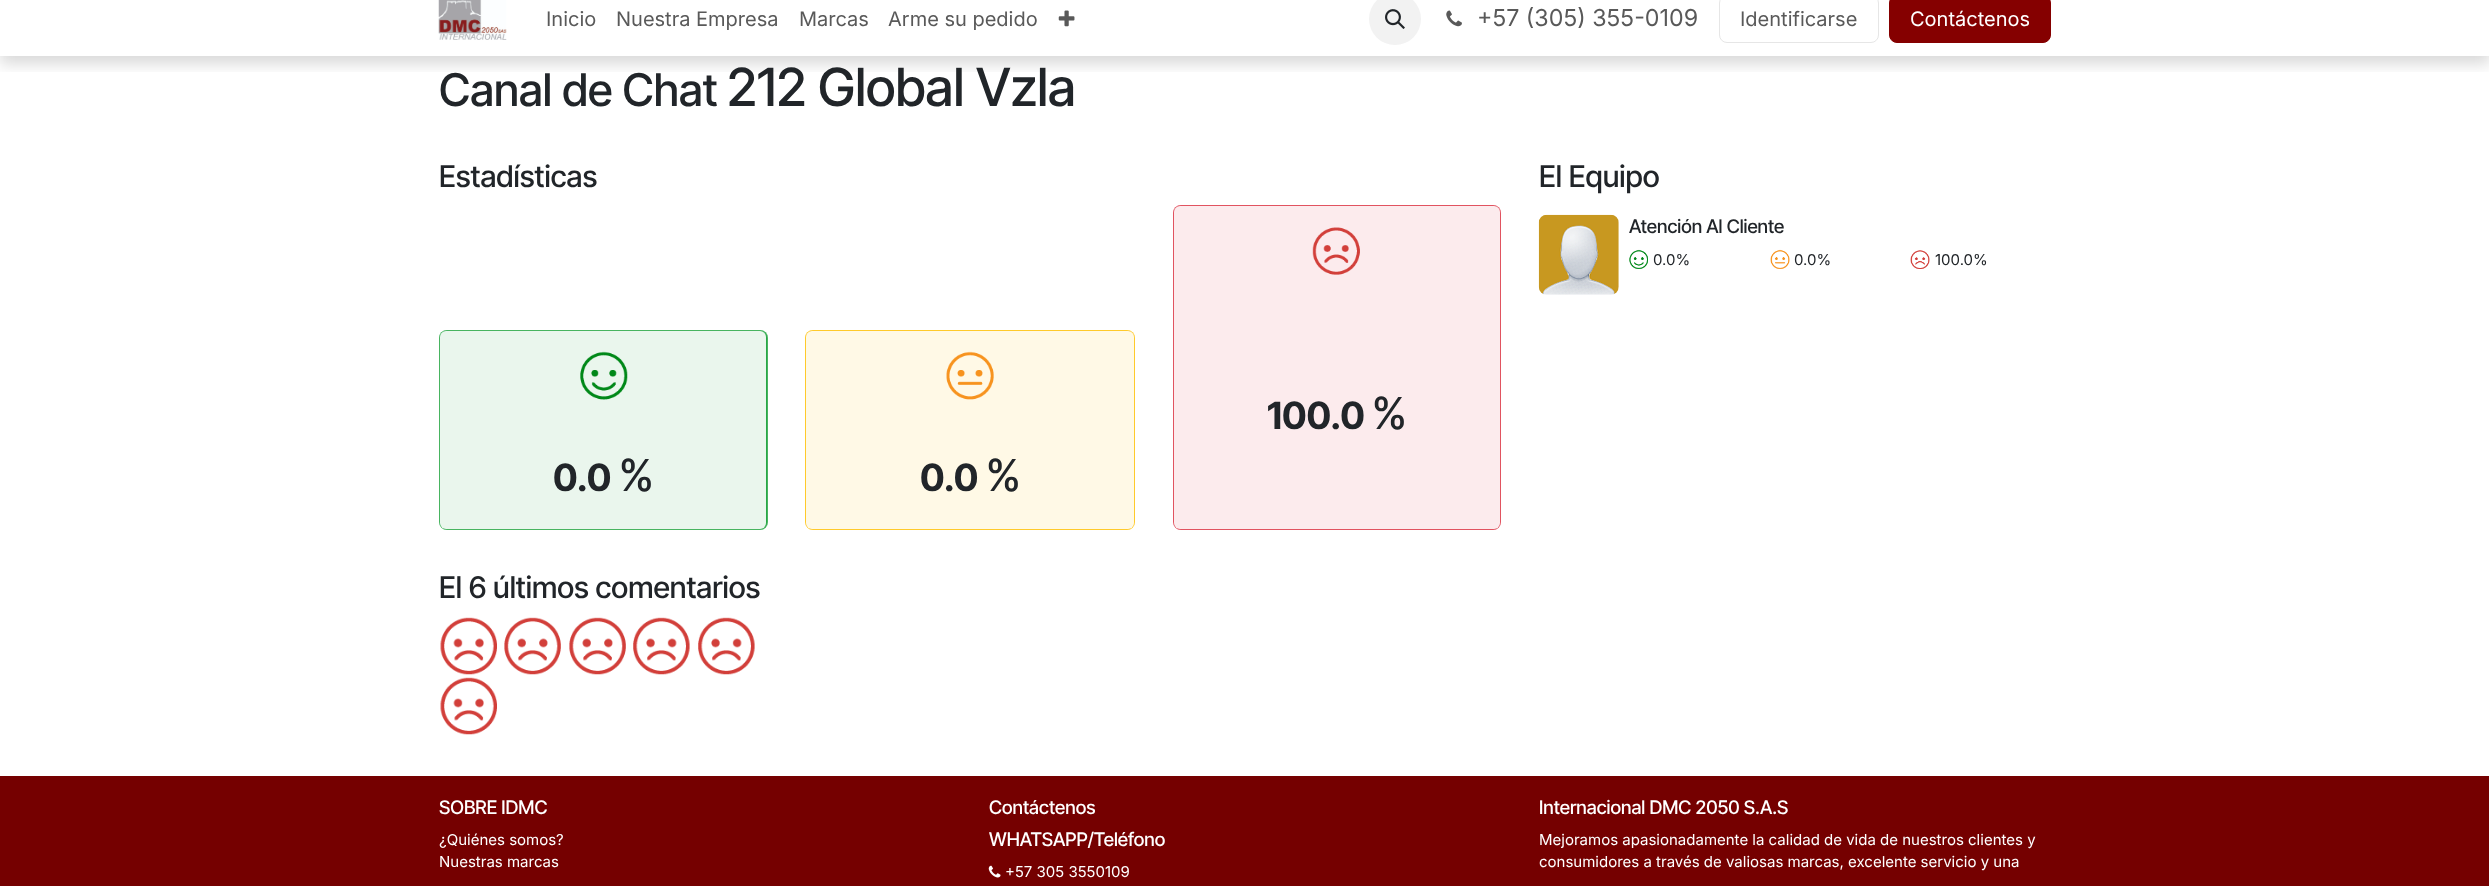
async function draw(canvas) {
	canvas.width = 2489;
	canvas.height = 886;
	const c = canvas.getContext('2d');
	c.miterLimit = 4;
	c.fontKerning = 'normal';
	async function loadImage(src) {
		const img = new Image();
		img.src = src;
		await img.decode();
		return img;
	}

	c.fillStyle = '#fff';
	c.fillRect(0, 0, 2489, 886);
	c.save();
	c.beginPath();
	c.rect(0, 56, 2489, 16);
	c.clip();
	c.fillStyle = '#00000026';
	c.filter = 'blur(7.5px)';
	c.beginPath();
	c.rect(0, -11, 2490, 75);
	c.fill();
	c.filter = 'none';
	c.restore();
	c.drawImage(await loadImage('img1.png'), 438, 0, 69, 40);
	c.font = '20px Inter';
	c.fillStyle = '#595959';
	for (const [text, x, y] of [
		['Inicio', 546, 26],
		['Nuestra Empresa', 616, 26],
		['Marcas', 799, 26],
		['Arme su pedido', 888, 26],
	]) {
		c.fillText(text, x, y);
	}
	c.drawImage(await loadImage('img2.png'), 1058, 10, 17, 17);
	c.fillStyle = '#f2f2f2';
	c.beginPath();
	c.arc(1395, 19, 26, 0, 2 * Math.PI);
	c.fill();
	c.drawImage(await loadImage('img3.png'), 1385, 9, 20, 20);
	c.drawImage(await loadImage('img4.png'), 1446, 10, 16, 17);
	c.font = '23.25px Inter';
	c.fillStyle = '#595959';
	c.fillText('+57 (305) 355-0109', 1477, 26);
	c.beginPath();
	c.roundRect(1719.5, -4.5, 159, 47, 7.5);
	c.strokeStyle = '#e6e6e6';
	c.stroke();
	c.font = '20px Inter';
	c.fillText('Identificarse', 1740, 26);
	c.fillStyle = '#850000';
	c.beginPath();
	c.roundRect(1889.5, -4.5, 161, 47, 7.5);
	c.fill();
	c.strokeStyle = '#850000';
	c.stroke();
	c.fillStyle = '#fff';
	c.fillText('Contáctenos', 1910, 26);
	c.font = '500 45px Inter Tight';
	c.fillStyle = '#212529';
	c.fillText('Canal de Chat', 439, 106);
	c.font = '500 52.5px Inter Tight';
	c.fillText('212 Global Vzla', 727, 106);
	c.font = '500 30px Inter Tight';
	c.fillText('Estadísticas', 439, 187);
	c.fillStyle = '#dc3545';
	c.beginPath();
	c.roundRect(1173, 205, 328, 325, 8);
	c.fill();
	c.beginPath();
	c.roundRect(1173.5, 205.5, 327, 324, 7.5);
	c.strokeStyle = '#ffffff26';
	c.stroke();
	c.fillStyle = '#ffffffe6';
	c.beginPath();
	c.roundRect(1174, 206, 326, 160, [6, 6, 0, 0]);
	c.fill();
	c.drawImage(await loadImage('img5.png'), 1312, 227, 48, 48);
	c.beginPath();
	c.roundRect(1174, 366, 326, 163, [0, 0, 6, 6]);
	c.fill();
	c.font = 'bold 37.5px Inter Tight';
	c.fillStyle = '#212529';
	c.fillText('100.0', 1267, 429);
	c.font = '500 44px Inter Tight';
	c.fillText('%', 1372, 429);
	c.fillStyle = '#28a745';
	c.beginPath();
	c.roundRect(439, 330, 329, 200, 8);
	c.fill();
	c.beginPath();
	c.roundRect(439.5, 330.5, 328, 199, 7.5);
	c.stroke();
	c.fillStyle = '#ffffffe6';
	c.beginPath();
	c.roundRect(440, 331, 326, 98, [6, 6, 0, 0]);
	c.fill();
	c.drawImage(await loadImage('img6.png'), 580, 351, 48, 49);
	c.beginPath();
	c.roundRect(440, 429, 326, 100, [0, 0, 6, 6]);
	c.fill();
	c.font = 'bold 37.5px Inter Tight';
	c.fillStyle = '#212529';
	c.fillText('0.0', 553, 491);
	c.font = '500 44px Inter Tight';
	c.fillText('%', 619, 491);
	c.fillStyle = '#ffc107';
	c.beginPath();
	c.roundRect(805, 330, 330, 200, 8);
	c.fill();
	c.beginPath();
	c.roundRect(805.5, 330.5, 329, 199, 7.5);
	c.stroke();
	c.fillStyle = '#ffffffe6';
	c.beginPath();
	c.roundRect(806, 331, 328, 98, [6, 6, 0, 0]);
	c.fill();
	c.drawImage(await loadImage('img7.png'), 946, 351, 48, 49);
	c.beginPath();
	c.roundRect(806, 429, 328, 100, [0, 0, 6, 6]);
	c.fill();
	c.font = 'bold 37.5px Inter Tight';
	c.fillStyle = '#212529';
	c.fillText('0.0', 920, 491);
	c.font = '500 44px Inter Tight';
	c.fillText('%', 986, 491);
	c.font = '500 30px Inter Tight';
	c.fillText('El 6 últimos comentarios', 439, 598);
	c.drawImage(await loadImage('img8.png'), 440, 617, 57, 58);
	c.drawImage(await loadImage('img9.png'), 504, 617, 57, 58);
	c.drawImage(await loadImage('img10.png'), 569, 617, 57, 58);
	c.drawImage(await loadImage('img11.png'), 633, 617, 57, 58);
	c.drawImage(await loadImage('img11.png'), 698, 617, 57, 58);
	c.drawImage(await loadImage('img12.png'), 440, 677, 57, 58);
	c.fillText('El Equipo', 1539, 187);
	c.drawImage(await loadImage('img13.png'), 1538, 214, 81, 81);
	c.font = '500 18.75px Inter Tight';
	c.fillText('Atención Al Cliente', 1629, 233);
	c.drawImage(await loadImage('img14.png'), 1629, 249, 19, 20);
	c.font = '15px Inter';
	c.fillText('0.0%', 1653, 265);
	c.drawImage(await loadImage('img15.png'), 1770, 249, 20, 20);
	c.fillText('0.0%', 1794, 265);
	c.drawImage(await loadImage('img16.png'), 1910, 250, 20, 19);
	c.fillText('100.0%', 1935, 265);
	c.fillStyle = '#750000';
	c.fillRect(0, 776, 2489, 110);
	c.font = '500 18.75px Inter Tight';
	c.fillStyle = '#fff';
	c.fillText('SOBRE IDMC', 439, 814);
	c.font = '15px Inter';
	c.fillText('¿Quiénes somos?', 439, 845);
	c.fillText('Nuestras marcas', 439, 867);
	c.font = '500 18.75px Inter Tight';
	c.fillText('Contáctenos', 989, 814);
	c.fillText('WHATSAPP/Teléfono', 989, 846);
	c.drawImage(await loadImage('img17.png'), 988, 865, 13, 13);
	c.font = '15px Inter';
	c.fillText('+57 305 3550109', 1005, 877);
	c.font = '500 18.75px Inter Tight';
	c.fillText('Internacional DMC 2050 S.A.S', 1539, 814);
	c.font = '15px Inter';
	c.fillText('Mejoramos apasionadamente la calidad de vida de nuestros clientes y', 1539, 845);
	c.fillText('consumidores a través de valiosas marcas, excelente servicio y una', 1539, 867);
}

draw(document.querySelector('canvas'));
